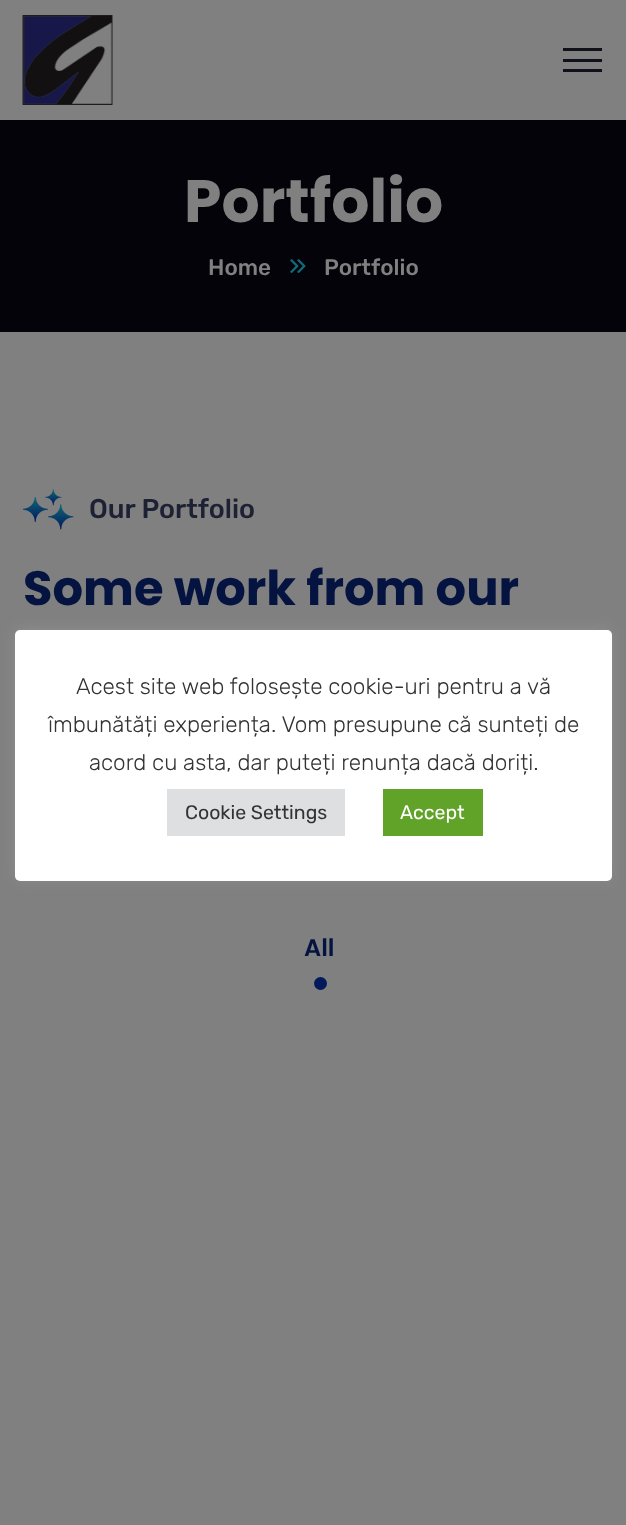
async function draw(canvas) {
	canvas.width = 626;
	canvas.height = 1525;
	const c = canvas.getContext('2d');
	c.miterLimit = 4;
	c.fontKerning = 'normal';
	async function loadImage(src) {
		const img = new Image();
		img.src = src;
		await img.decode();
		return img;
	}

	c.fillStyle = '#808080';
	c.fillRect(0, 0, 626, 1525);
	c.drawImage(await loadImage('img1.png'), 22, 15, 91, 90);
	for (const [x, y, w, h, color] of [
		[563, 48, 39, 3, '#10111a'],
		[563, 59, 39, 3, '#10111a'],
		[563, 69, 39, 3, '#10111a'],
		[0, 120, 626, 212, '#040309'],
	]) {
		c.fillStyle = color;
		c.fillRect(x, y, w, h);
	}
	c.font = 'bold 60px Poppins';
	c.fillStyle = '#808080';
	c.fillText('Portfolio', 184, 222);
	c.font = '500 22.5px Rubik';
	c.fillText('Home', 208, 275);
	c.drawImage(await loadImage('img2.png'), 290, 259, 16, 15);
	c.fillText('Portfolio', 324, 275);
	c.drawImage(await loadImage('img4.png'), 45, 489, 17, 17);
	c.drawImage(await loadImage('img3.png'), 23, 497, 25, 25);
	c.drawImage(await loadImage('img5.png'), 48, 504, 26, 26);
	c.font = '500 27px Rubik';
	c.fillStyle = '#1d2134';
	c.fillText('Our Portfolio', 89, 518);
	c.font = 'bold 48px Poppins';
	c.fillStyle = '#041340';
	c.fillText('Some work from our', 23, 605);
	c.font = '600 24px Poppins';
	c.fillText('All', 304, 956);
	c.fillStyle = '#02195c';
	c.beginPath();
	c.arc(320.5, 983.5, 6.5, 0, 2 * Math.PI);
	c.fill();
	c.fillStyle = '#acabab4d';
	c.filter = 'blur(7.5px)';
	c.beginPath();
	c.roundRect(15, 629, 597, 250, 5);
	c.fill();
	c.filter = 'none';
	c.fillStyle = '#fff';
	c.beginPath();
	c.roundRect(15, 630, 597, 251, 5);
	c.fill();
	c.font = '300 22.5px Rubik';
	c.fillStyle = '#333';
	for (const [text, x, y] of [
		['Acest site web folosește cookie-uri pentru a vă', 76, 694],
		['îmbunătăți experiența. Vom presupune că sunteți de', 48, 732],
		['acord cu asta, dar puteți renunța dacă doriți.', 89, 770],
	]) {
		c.fillText(text, x, y);
	}
	c.fillStyle = '#dedfe0';
	c.fillRect(167, 789, 178, 47);
	c.font = '19.5px Rubik';
	c.fillStyle = '#333';
	c.fillText('Cookie Settings', 185, 819);
	c.fillStyle = '#61a229';
	c.fillRect(383, 789, 100, 47);
	c.fillStyle = '#fff';
	c.fillText('Accept', 400, 819);
}

draw(document.querySelector('canvas'));
